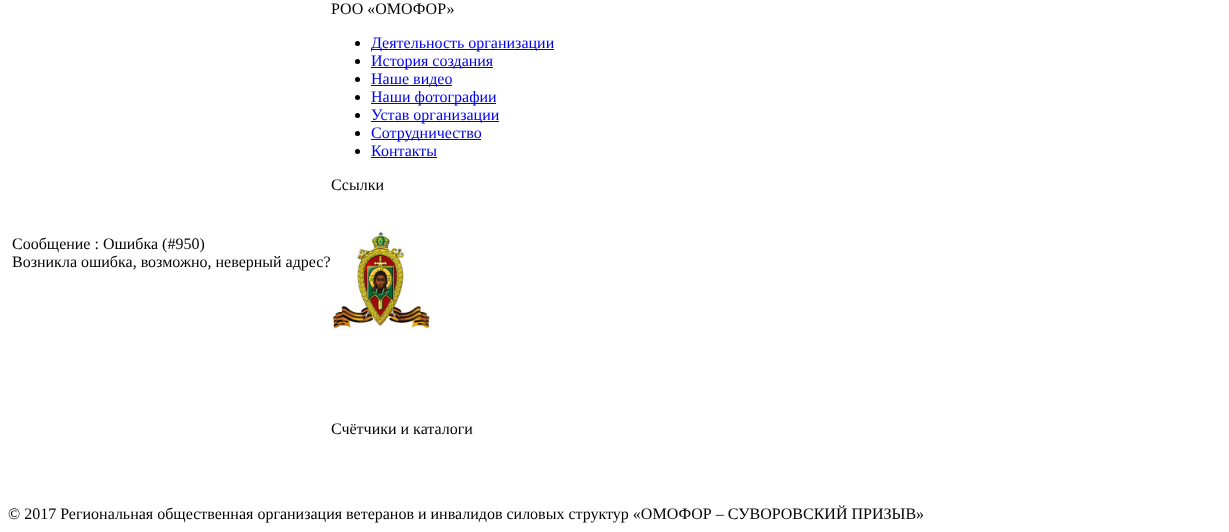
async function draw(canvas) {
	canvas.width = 1229;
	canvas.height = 532;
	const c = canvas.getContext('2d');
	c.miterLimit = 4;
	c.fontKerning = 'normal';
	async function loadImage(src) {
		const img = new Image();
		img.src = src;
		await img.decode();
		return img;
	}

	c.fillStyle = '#fff';
	c.fillRect(0, 0, 1229, 532);
	c.font = '16px Liberation Serif';
	c.fillStyle = '#000';
	for (const [text, x, y] of [
		['Сообщение : Ошибка (#950)', 12, 249],
		['Возникла ошибка, возможно, неверный адрес?', 12, 267],
		['РОО «ОМОФОР»', 331, 14],
	]) {
		c.fillText(text, x, y);
	}
	c.beginPath();
	c.arc(357.5, 43.5, 2.5, 0, 2 * Math.PI);
	c.fill();
	c.fillStyle = '#00e';
	c.fillRect(371, 49, 183, 1);
	c.fillText('Деятельность организации', 371, 48);
	c.fillStyle = '#000';
	c.beginPath();
	c.arc(357.5, 61.5, 2.5, 0, 2 * Math.PI);
	c.fill();
	c.fillStyle = '#00e';
	c.fillRect(371, 67, 122, 1);
	c.fillText('История создания', 371, 66);
	c.fillStyle = '#000';
	c.beginPath();
	c.arc(357.5, 79.5, 2.5, 0, 2 * Math.PI);
	c.fill();
	c.fillStyle = '#00e';
	c.fillRect(371, 85, 81, 1);
	c.fillText('Наше видео', 371, 84);
	c.fillStyle = '#000';
	c.beginPath();
	c.arc(357.5, 97.5, 2.5, 0, 2 * Math.PI);
	c.fill();
	c.fillStyle = '#00e';
	c.fillRect(371, 103, 125, 1);
	c.fillText('Наши фотографии', 371, 102);
	c.fillStyle = '#000';
	c.beginPath();
	c.arc(357.5, 115.5, 2.5, 0, 2 * Math.PI);
	c.fill();
	c.fillStyle = '#00e';
	c.fillRect(371, 121, 128, 1);
	c.fillText('Устав организации', 371, 120);
	c.fillStyle = '#000';
	c.beginPath();
	c.arc(357.5, 133.5, 2.5, 0, 2 * Math.PI);
	c.fill();
	c.fillStyle = '#00e';
	c.fillRect(371, 139, 110, 1);
	c.fillText('Сотрудничество', 371, 138);
	c.fillStyle = '#000';
	c.beginPath();
	c.arc(357.5, 151.5, 2.5, 0, 2 * Math.PI);
	c.fill();
	c.fillStyle = '#00e';
	c.fillText('Контакты', 371, 156);
	c.fillRect(371, 157, 66, 1);
	c.fillStyle = '#000';
	c.fillText('Ссылки', 331, 190);
	c.drawImage(await loadImage('img1.png'), 331, 230, 99, 100);
	c.fillText('Счётчики и каталоги', 331, 434);
	c.fillText('© 2017 Региональная общественная организация ветеранов и инвалидов силовых структур «ОМОФОР – СУВОРОВСКИЙ ПРИЗЫВ»', 8, 519);
}

draw(document.querySelector('canvas'));
